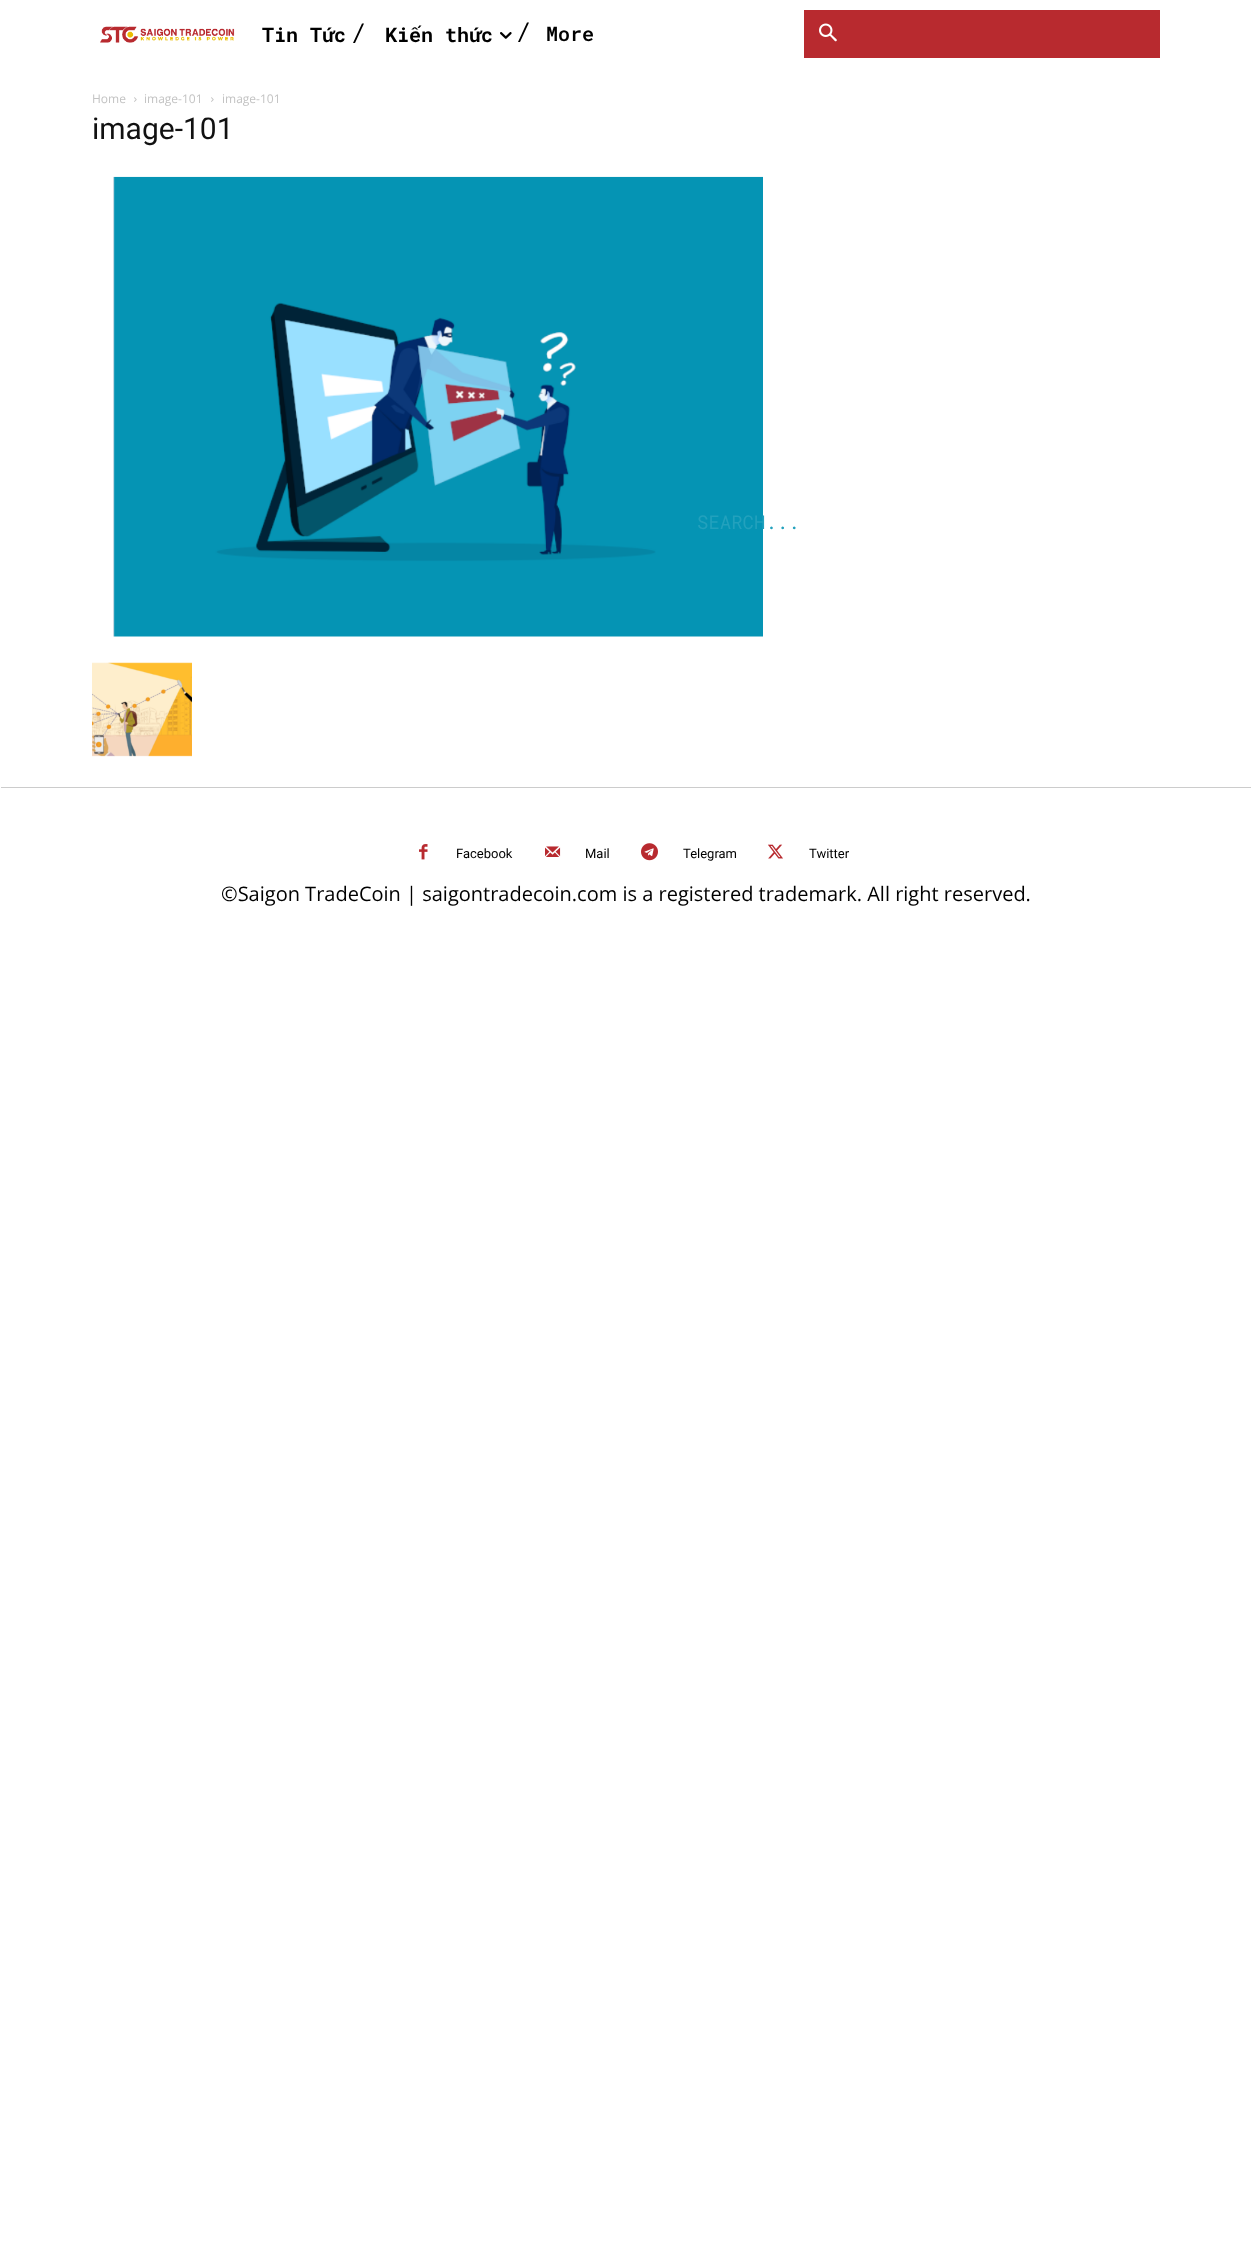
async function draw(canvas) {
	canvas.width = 1251;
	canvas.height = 2251;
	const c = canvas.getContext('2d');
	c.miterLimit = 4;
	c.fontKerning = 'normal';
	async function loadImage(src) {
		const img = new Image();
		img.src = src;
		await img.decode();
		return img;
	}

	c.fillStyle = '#fff';
	c.fillRect(0, 0, 1251, 2251);
	c.drawImage(await loadImage('img1.png'), 100, 26, 135, 17);
	c.font = 'bold 20px Roboto Mono';
	c.fillStyle = '#000';
	c.fillText('Tin Tức', 262, 42);
	c.beginPath();
	c.moveTo(362, 23.5);
	c.lineTo(353, 43);
	c.lineTo(355, 43);
	c.lineTo(364, 23.5);
	c.closePath();
	c.fill();
	c.fillText('Kiến thức', 385, 42);
	c.drawImage(await loadImage('img2.png'), 500, 32, 12, 7);
	c.beginPath();
	c.moveTo(527, 22.5);
	c.lineTo(518, 42);
	c.lineTo(520, 42);
	c.lineTo(529, 22.5);
	c.closePath();
	c.fill();
	c.font = '600 20px Roboto Mono';
	c.fillText('More', 546, 41);
	c.fillStyle = '#b82a2f';
	c.fillRect(804, 10, 356, 48);
	c.drawImage(await loadImage('img3.png'), 819, 23, 18, 19);
	c.font = '12px Open Sans';
	c.fillStyle = '#c3c3c3';
	c.fillText('Home', 92, 103);
	c.drawImage(await loadImage('img4.png'), 134, 97, 3, 5);
	c.fillText('image-101', 144, 103);
	c.drawImage(await loadImage('img4.png'), 211, 97, 3, 5);
	c.fillText('image-101', 222, 103);
	c.font = '30px Roboto';
	c.fillStyle = '#111';
	c.fillText('image-101', 92, 139);
	c.drawImage(await loadImage('img5.png'), 113, 176, 650, 461);
	c.drawImage(await loadImage('img6.png'), 92, 662, 100, 95);
	c.fillStyle = '#ccc';
	c.fillRect(1, 787, 1250, 1);
	c.drawImage(await loadImage('img7.png'), 419, 844, 9, 16);
	c.font = '13px Roboto';
	c.fillStyle = '#000';
	c.fillText('Facebook', 456, 858);
	c.drawImage(await loadImage('img8.png'), 545, 846, 16, 11);
	c.fillText('Mail', 585, 858);
	c.drawImage(await loadImage('img9.png'), 641, 843, 17, 18);
	c.fillText('Telegram', 683, 858);
	c.drawImage(await loadImage('img10.png'), 768, 844, 15, 15);
	c.fillText('Twitter', 809, 858);
	c.font = '20px Open Sans';
	c.fillText('©Saigon TradeCoin | saigontradecoin.com is a registered trademark. All right reserved.', 221, 901);
	c.font = '19px Roboto Mono';
	c.fillStyle = '#22a1bd';
	c.fillText('SEARCH...', 697, 529);
}

draw(document.querySelector('canvas'));
